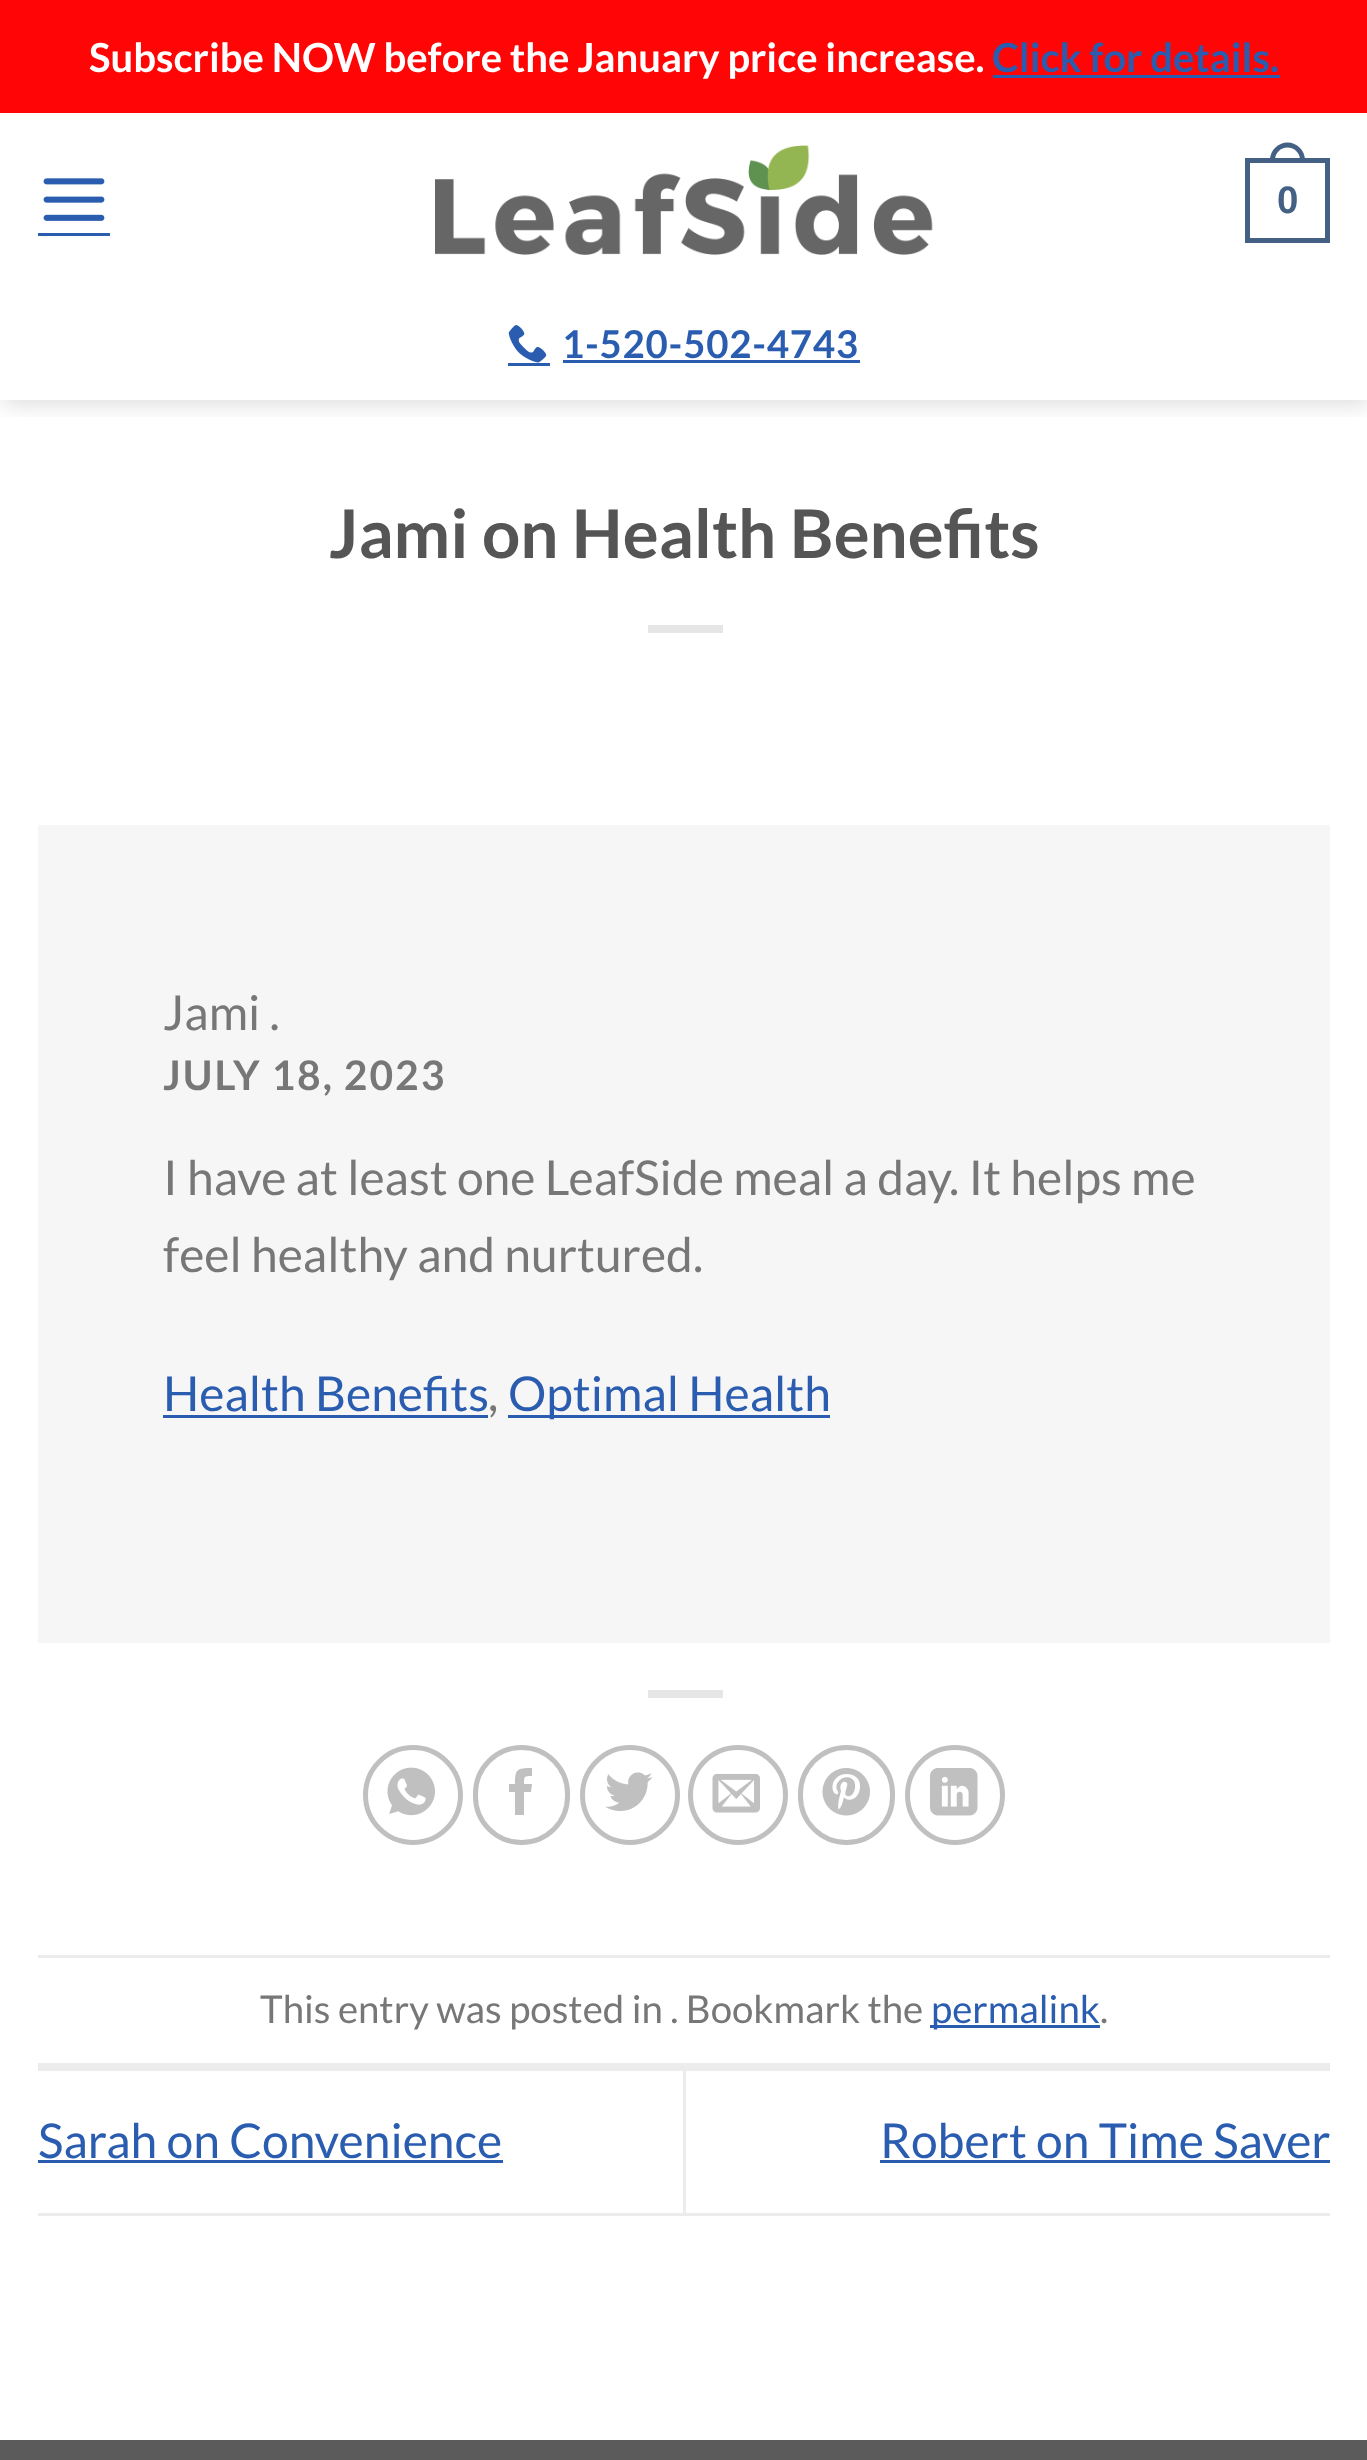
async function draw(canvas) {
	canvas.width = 1367;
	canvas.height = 2460;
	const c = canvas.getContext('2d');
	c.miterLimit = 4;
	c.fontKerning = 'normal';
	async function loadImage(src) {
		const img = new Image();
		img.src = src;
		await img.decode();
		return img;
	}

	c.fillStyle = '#fff';
	c.fillRect(0, 0, 1367, 2460);
	c.save();
	c.beginPath();
	c.rect(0, 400, 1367, 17);
	c.clip();
	c.fillStyle = '#00000026';
	c.filter = 'blur(12.5px)';
	c.beginPath();
	c.rect(3, 3, 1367, 400);
	c.fill();
	c.filter = 'none';
	c.restore();
	c.fillStyle = '#ff0505';
	c.fillRect(0, 0, 1367, 113);
	c.font = 'bold 40px Lato';
	c.fillStyle = '#fff';
	c.fillText('Subscribe NOW before the January price increase.', 89, 72);
	c.fillStyle = '#2a5db0';
	c.fillText('Click for details.', 992, 72);
	c.fillRect(993, 75, 287, 3);
	c.drawImage(await loadImage('img1.png'), 43, 178, 62, 43);
	c.fillRect(38, 233, 72, 3);
	c.drawImage(await loadImage('img2.png'), 435, 145, 498, 110);
	c.strokeStyle = '#446084';
	c.lineWidth = 5;
	c.strokeRect(1247.5, 160.5, 80, 80);
	c.fillStyle = '#446084';
	c.beginPath();
	c.moveTo(1287.5, 142.5);
	c.bezierCurveTo(1297, 142.5, 1305, 150.5, 1305, 160);
	c.lineTo(1305, 162.5);
	c.lineTo(1270, 162.5);
	c.lineTo(1270, 160);
	c.bezierCurveTo(1270, 150.5, 1278, 142.5, 1287.5, 142.5);
	c.closePath();
	c.moveTo(1287.5, 147.5);
	c.bezierCurveTo(1294.5, 147.5, 1300, 153, 1300, 160);
	c.lineTo(1300, 162.5);
	c.lineTo(1275, 162.5);
	c.lineTo(1275, 160);
	c.bezierCurveTo(1275, 153, 1280.5, 147.5, 1287.5, 147.5);
	c.closePath();
	c.fill('evenodd');
	c.font = 'bold 38.4px Liberation Sans';
	c.fillText('0', 1277, 213);
	c.drawImage(await loadImage('img3.png'), 508, 325, 39, 38);
	c.fillStyle = '#2a5db0';
	c.fillRect(508, 363, 42, 3);
	c.letterSpacing = '0.75px';
	c.font = 'bold 38.4px Lato';
	c.fillText('1-520-502-4743', 562, 358);
	c.fillRect(563, 360, 297, 3);
	c.letterSpacing = '0px';
	c.wordSpacing = '0.5px';
	c.font = 'bold 67.25px Lato';
	c.fillStyle = '#555';
	c.fillText('Jami on Health Benefits', 329, 558);
	c.fillStyle = '#e6e6e6';
	c.fillRect(648, 625, 75, 8);
	c.fillStyle = '#f6f6f6';
	c.fillRect(38, 825, 1292, 818);
	c.wordSpacing = '0px';
	c.font = '48px Lato';
	c.fillStyle = '#777';
	c.fillText('Jami .', 163, 1030);
	c.letterSpacing = '2px';
	c.font = 'bold 40.75px Lato';
	c.fillText('JULY 18, 2023', 163, 1090);
	c.letterSpacing = '0px';
	c.font = '48px Lato';
	c.fillText('I have at least one LeafSide meal a day. It helps me', 163, 1195);
	c.fillText('feel healthy and nurtured.', 163, 1272);
	c.fillStyle = '#2a5db0';
	c.fillText('Health Benefits', 163, 1411);
	c.fillRect(163, 1415, 325, 3);
	c.fillStyle = '#777';
	c.fillText(',', 488, 1411);
	c.fillStyle = '#2a5db0';
	c.fillRect(508, 1415, 322, 3);
	c.fillText('Optimal Health', 508, 1411);
	c.fillStyle = '#e6e6e6';
	c.fillRect(648, 1690, 75, 8);
	c.beginPath();
	c.arc(413, 1795, 47.5, 0, 2 * Math.PI);
	c.strokeStyle = '#c0c0c0';
	c.stroke();
	c.drawImage(await loadImage('img4.png'), 387, 1767, 48, 49);
	c.beginPath();
	c.roundRect(475.5, 1747.5, 92, 95, 46);
	c.stroke();
	c.fillStyle = '#c0c0c0';
	c.beginPath();
	c.moveTo(524, 1815);
	c.lineTo(515, 1815);
	c.lineTo(515, 1792);
	c.lineTo(509, 1792);
	c.lineTo(509, 1784);
	c.lineTo(515, 1784);
	c.bezierCurveTo(515, 1769, 517, 1768, 532, 1768);
	c.lineTo(532, 1776);
	c.bezierCurveTo(524, 1776, 524, 1776, 524, 1784);
	c.lineTo(532, 1784);
	c.lineTo(531, 1792);
	c.lineTo(524, 1792);
	c.closePath();
	c.fill();
	c.beginPath();
	c.arc(630, 1795, 47.5, 0, 2 * Math.PI);
	c.stroke();
	c.drawImage(await loadImage('img5.png'), 605, 1772, 48, 39);
	c.beginPath();
	c.arc(738, 1795, 47.5, 0, 2 * Math.PI);
	c.stroke();
	c.drawImage(await loadImage('img6.png'), 712, 1773, 48, 40);
	c.beginPath();
	c.roundRect(800.5, 1747.5, 92, 95, 46);
	c.stroke();
	c.drawImage(await loadImage('img7.png'), 822, 1768, 48, 48);
	c.beginPath();
	c.arc(955, 1795, 47.5, 0, 2 * Math.PI);
	c.stroke();
	c.drawImage(await loadImage('img8.png'), 930, 1768, 48, 48);
	c.fillStyle = '#ececec';
	c.fillRect(38, 1955, 1292, 3);
	c.fillRect(38, 2063, 1292, 8);
	c.font = '38.4px Lato';
	c.fillStyle = '#777';
	c.fillText('This entry was posted in . Bookmark the', 260, 2023);
	c.fillStyle = '#2a5db0';
	c.fillRect(930, 2025, 170, 3);
	c.fillText('permalink', 931, 2023);
	c.fillStyle = '#777';
	c.fillText('.', 1100, 2023);
	c.fillStyle = '#ececec';
	c.fillRect(38, 2213, 1292, 3);
	c.font = '48px Lato';
	c.fillStyle = '#2a5db0';
	c.fillText('Sarah on Convenience', 38, 2158);
	c.fillRect(38, 2160, 465, 3);
	c.fillStyle = '#ececec';
	c.fillRect(683, 2070, 3, 143);
	c.fillStyle = '#2a5db0';
	c.fillText('Robert on Time Saver', 880, 2158);
	c.fillRect(880, 2160, 450, 3);
	c.fillStyle = '#5b5b5b';
	c.fillRect(0, 2440, 1367, 20);
}

draw(document.querySelector('canvas'));
